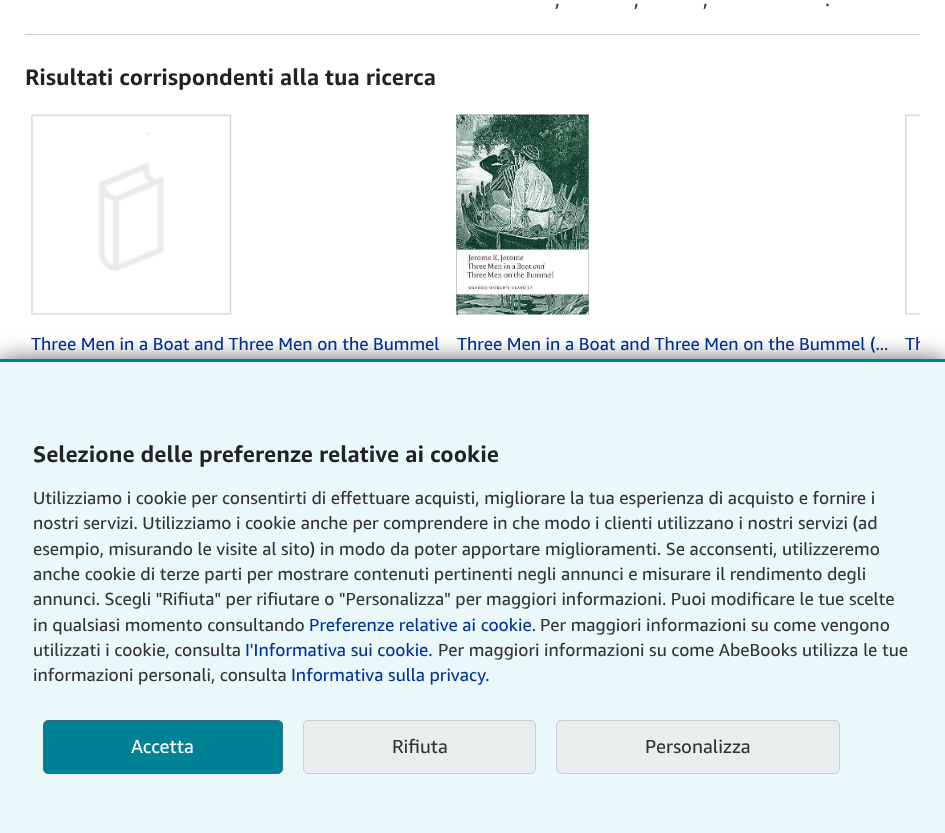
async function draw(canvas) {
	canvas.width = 945;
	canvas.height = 833;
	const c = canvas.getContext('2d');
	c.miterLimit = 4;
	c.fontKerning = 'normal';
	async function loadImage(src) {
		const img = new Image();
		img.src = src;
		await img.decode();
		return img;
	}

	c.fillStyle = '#fff';
	c.fillRect(0, 0, 945, 833);
	c.font = '20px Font';
	c.fillStyle = '#333';
	for (const [text, x, y] of [
		[',', 555, 6],
		[',', 634, 6],
		[',', 703, 6],
		['.', 825, 6],
	]) {
		c.fillText(text, x, y);
	}
	c.fillStyle = '#ccc';
	c.fillRect(25, 34, 895, 1);
	c.font = 'bold 22.5px Font';
	c.fillStyle = '#222';
	c.fillText('Risultati corrispondenti alla tua ricerca', 25, 85);
	c.drawImage(await loadImage('img1.png'), 31, 114, 201, 201);
	c.font = '17.5px Font';
	c.fillStyle = '#039';
	c.fillText('Three Men in a Boat and Three Men on the Bummel', 31, 350);
	c.drawImage(await loadImage('img2.png'), 456, 114, 133, 201);
	c.fillText('Three Men in a Boat and Three Men on the Bummel (...', 457, 350);
	c.drawImage(await loadImage('img3.png'), 905, 114, 15, 201);
	c.save();
	c.beginPath();
	c.rect(25, 109, 895, 389);
	c.clip();
	c.fillText('Th', 905, 350);
	c.restore();
	c.fillStyle = '#000000b3';
	c.filter = 'blur(12.5px)';
	c.beginPath();
	c.rect(0, 361, 945, 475);
	c.fill();
	c.filter = 'none';
	c.fillStyle = '#ebf8fa';
	c.fillRect(0, 362, 945, 471);
	c.fillStyle = '#008296';
	c.fillRect(0, 359, 945, 3);
	c.font = 'bold 22.5px Font';
	c.fillStyle = '#222';
	c.fillText('Selezione delle preferenze relative ai cookie', 33, 462);
	c.font = '17.5px Font';
	c.fillStyle = '#333';
	for (const [text, x, y] of [
		['Utilizziamo i cookie per consentirti di effettuare acquisti, migliorare la tua esperienza di acquisto e fornire i', 33, 504],
		['nostri servizi. Utilizziamo i cookie anche per comprendere in che modo i clienti utilizzano i nostri servizi (ad', 33, 529],
		['esempio, misurando le visite al sito) in modo da poter apportare miglioramenti. Se acconsenti, utilizzeremo', 33, 555],
		['anche cookie di terze parti per mostrare contenuti pertinenti negli annunci e misurare il rendimento degli', 33, 580],
		['annunci. Scegli "Rifiuta" per rifiutare o "Personalizza" per maggiori informazioni. Puoi modificare le tue scelte', 33, 605],
		['in qualsiasi momento consultando', 33, 631],
	]) {
		c.fillText(text, x, y);
	}
	c.fillStyle = '#039';
	c.fillText('Preferenze relative ai cookie.', 309, 631);
	c.fillStyle = '#333';
	c.fillText('Per maggiori informazioni su come vengono', 540, 631);
	c.fillText('utilizzati i cookie, consulta', 33, 656);
	c.fillStyle = '#039';
	c.fillText('I\'Informativa sui cookie.', 245, 656);
	c.fillStyle = '#333';
	c.fillText('Per maggiori informazioni su come AbeBooks utilizza le tue', 438, 656);
	c.fillText('informazioni personali, consulta', 33, 681);
	c.fillStyle = '#039';
	c.fillText('Informativa sulla privacy.', 291, 681);
	c.fillStyle = '#008296';
	c.beginPath();
	c.roundRect(43.5, 720.5, 239, 53, 4.5);
	c.fill();
	c.strokeStyle = '#3d7178';
	c.stroke();
	c.font = '18.75px Font';
	c.fillStyle = '#fff';
	c.fillText('Accetta', 131, 753);
	c.fillStyle = '#eaeded';
	c.beginPath();
	c.roundRect(303.5, 720.5, 232, 53, 4.5);
	c.fill();
	c.strokeStyle = '#ccc';
	c.stroke();
	c.fillStyle = '#333';
	c.fillText('Rifiuta', 392, 753);
	c.fillStyle = '#eaeded';
	c.beginPath();
	c.roundRect(556.5, 720.5, 283, 53, 4.5);
	c.fill();
	c.stroke();
	c.fillStyle = '#333';
	c.fillText('Personalizza', 645, 753);
}

draw(document.querySelector('canvas'));
